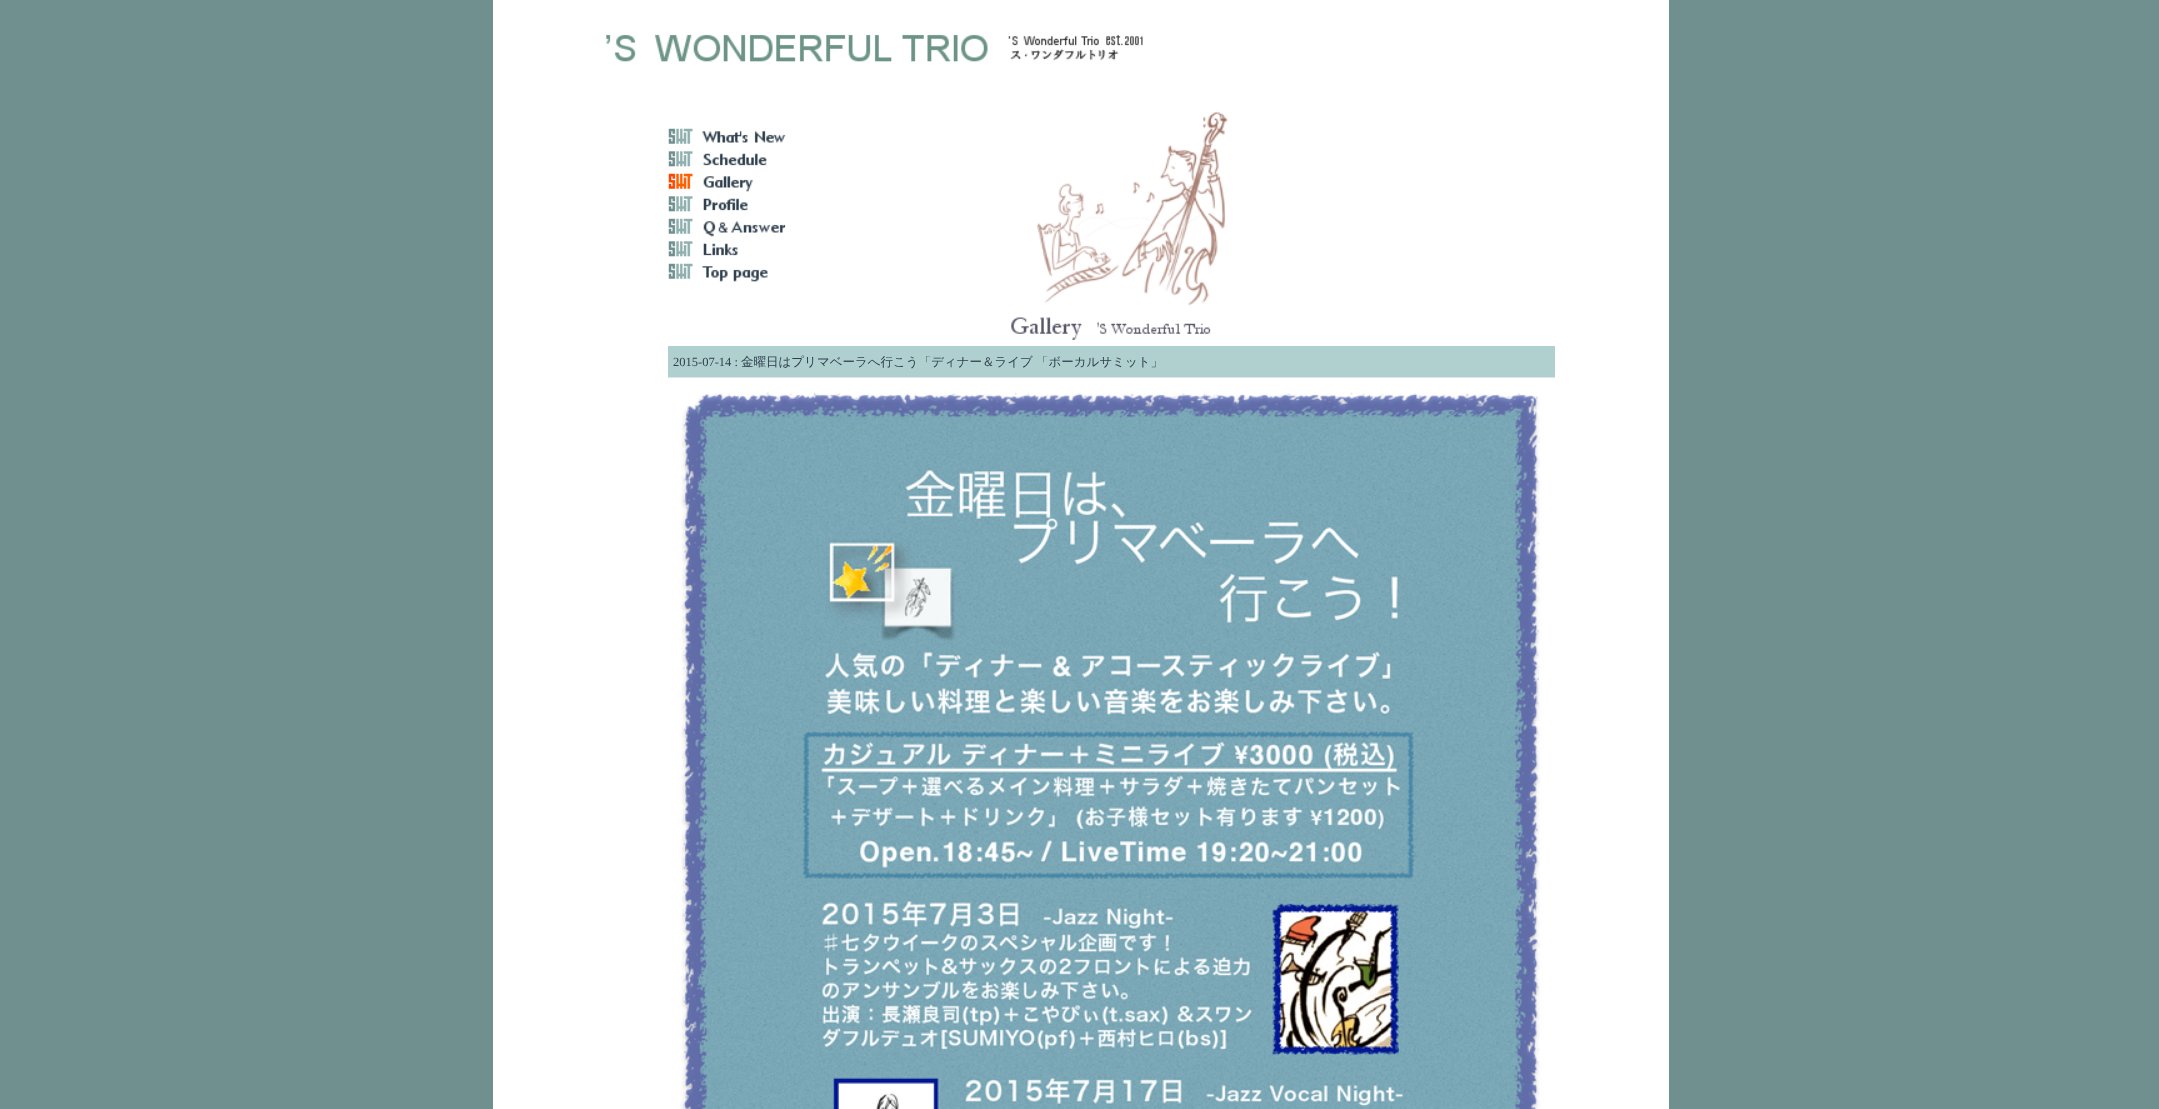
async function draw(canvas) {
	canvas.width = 2159;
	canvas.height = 1109;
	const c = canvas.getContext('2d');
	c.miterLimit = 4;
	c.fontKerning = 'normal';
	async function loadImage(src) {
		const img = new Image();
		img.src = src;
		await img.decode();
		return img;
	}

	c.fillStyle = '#709090';
	c.fillRect(0, 0, 2159, 1109);
	c.fillStyle = '#fff';
	c.fillRect(493, 0, 1176, 1109);
	c.drawImage(await loadImage('img1.png'), 1036, 111, 192, 195);
	c.drawImage(await loadImage('img2.png'), 606, 34, 537, 28);
	c.drawImage(await loadImage('img3.png'), 668, 128, 118, 16);
	c.drawImage(await loadImage('img4.png'), 668, 151, 99, 16);
	c.drawImage(await loadImage('img5.png'), 668, 173, 85, 19);
	c.drawImage(await loadImage('img6.png'), 668, 196, 80, 16);
	c.drawImage(await loadImage('img7.png'), 668, 218, 118, 19);
	c.drawImage(await loadImage('img8.png'), 668, 241, 70, 16);
	c.drawImage(await loadImage('img9.png'), 668, 263, 100, 19);
	c.drawImage(await loadImage('img10.png'), 1011, 317, 200, 23);
	c.fillStyle = '#b0d0d0';
	c.fillRect(668, 346, 887, 32);
	c.font = '12.5px Liberation Serif';
	c.fillStyle = '#2f3f4d';
	c.fillText('2015-07-14 :', 673, 366);
	c.font = '500 12.5px WenQuanYi Zen Hei';
	c.fillText('金曜日はプリマベーラへ行こう「ディナー＆ライブ', 741, 366);
	c.fillText('「ボーカルサミット」', 1036, 366);
	c.drawImage(await loadImage('img11.png'), 668, 377, 887, 732);
}

draw(document.querySelector('canvas'));
